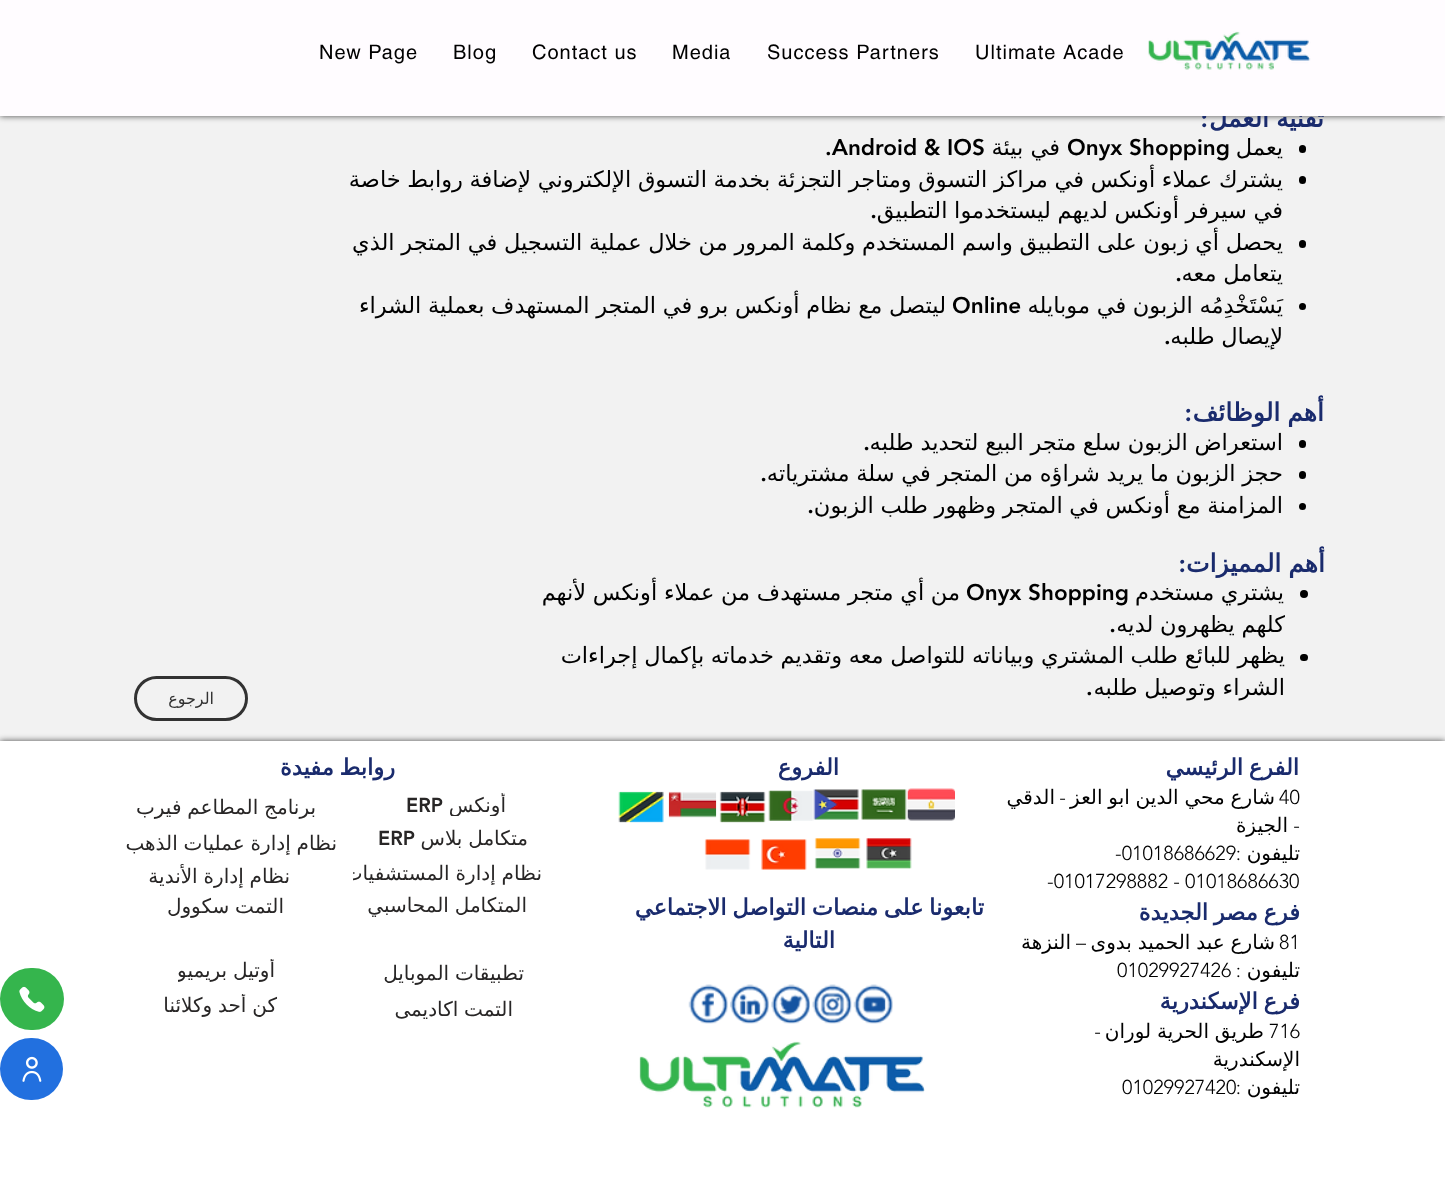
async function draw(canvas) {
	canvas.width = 1445;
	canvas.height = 1197;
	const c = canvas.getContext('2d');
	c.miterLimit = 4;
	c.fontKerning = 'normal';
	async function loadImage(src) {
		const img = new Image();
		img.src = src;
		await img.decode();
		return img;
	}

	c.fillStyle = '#f2f2f2';
	c.fillRect(0, 0, 1445, 1197);
	c.fillStyle = '#000000b3';
	c.filter = 'blur(3px)';
	c.beginPath();
	c.rect(0, 0, 1445, 116);
	c.fill();
	c.filter = 'none';
	c.wordSpacing = '-1px';
	c.direction = 'rtl';
	c.font = 'bold 25px DejaVu Sans';
	c.fillStyle = '#1a2b6d';
	c.fillText('تقنية العمل', 1324, 127);
	c.wordSpacing = '0px';
	c.font = '900 25px "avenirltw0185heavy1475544"';
	c.fillText(':', 1208, 127);
	c.fillStyle = '#fffcff';
	c.fillRect(0, 0, 1445, 116);
	c.drawImage(await loadImage('img1.png'), 1148, 31, 163, 39);
	c.letterSpacing = '1px';
	c.direction = 'ltr';
	c.font = '20px helvetica';
	c.fillStyle = '#000';
	for (const [text, x, y] of [
		['Ultimate Acade', 975, 59],
		['Success Partners', 767, 59],
		['Media', 672, 59],
		['Contact us', 532, 59],
		['Blog', 453, 59],
		['New Page', 319, 59],
	]) {
		c.fillText(text, x, y);
	}
	c.beginPath();
	c.roundRect(1299, 145, 7, 8, 3.5);
	c.fill();
	c.letterSpacing = '0px';
	c.direction = 'rtl';
	c.font = '22.5px DejaVu Sans';
	c.fillText('يعمل', 1283, 155);
	c.direction = 'ltr';
	c.font = '900 22.5px "avenirltw0185heavy1475544"';
	c.fillText('Onyx Shopping', 1067, 155);
	c.direction = 'rtl';
	c.font = '22.5px DejaVu Sans';
	c.fillText('في بيئة', 1060, 155);
	c.direction = 'ltr';
	c.font = '900 22.5px "avenirltw0185heavy1475544"';
	c.fillText('.Android & IOS', 825, 155);
	c.beginPath();
	c.roundRect(1299, 176, 7, 8, 3.5);
	c.fill();
	c.wordSpacing = '-0.5px';
	c.direction = 'rtl';
	c.font = '22.5px DejaVu Sans';
	c.fillText('يشترك عملاء أونكس في مراكز التسوق ومتاجر التجزئة بخدمة التسوق الإلكتروني لإضافة روابط خاصة', 1283, 187);
	c.fillText('في سيرفر أونكس لديهم ليستخدموا التطبيق', 1283, 218);
	c.wordSpacing = '0px';
	c.font = '900 22.5px "avenirltw0185heavy1475544"';
	c.fillText('.', 877, 218);
	c.beginPath();
	c.roundRect(1299, 240, 7, 8, 3.5);
	c.fill();
	c.wordSpacing = '-0.5px';
	c.font = '22.5px DejaVu Sans';
	c.fillText('يحصل أي زبون على التطبيق واسم المستخدم وكلمة المرور من خلال عملية التسجيل في المتجر الذي', 1283, 250);
	c.fillText('يتعامل معه', 1283, 281);
	c.wordSpacing = '0px';
	c.font = '900 22.5px "avenirltw0185heavy1475544"';
	c.fillText('.', 1182, 281);
	c.beginPath();
	c.arc(1302.5, 306.5, 3.5, 0, 2 * Math.PI);
	c.fill();
	c.wordSpacing = '-0.5px';
	c.font = '22.5px DejaVu Sans';
	c.fillText('يَسْتَخْدِمُه الزبون في موبايله', 1283, 313);
	c.wordSpacing = '0px';
	c.direction = 'ltr';
	c.font = '900 22.5px "avenirltw0185heavy1475544"';
	c.fillText('Online', 952, 313);
	c.wordSpacing = '-0.5px';
	c.direction = 'rtl';
	c.font = '22.5px DejaVu Sans';
	c.fillText('ليتصل مع نظام أونكس برو في المتجر المستهدف بعملية الشراء', 946, 313);
	c.fillText('لإيصال طلبه', 1283, 344);
	c.wordSpacing = '0px';
	c.direction = 'ltr';
	c.font = '900 22.5px "avenirltw0185heavy1475544"';
	c.fillText('.', 1164, 344);
	c.wordSpacing = '-1px';
	c.direction = 'rtl';
	c.font = 'bold 25px DejaVu Sans';
	c.fillStyle = '#1a2b6d';
	c.fillText('أهم الوظائف', 1324, 421);
	c.wordSpacing = '0px';
	c.font = '900 25px "avenirltw0185heavy1475544"';
	c.fillText(':', 1192, 421);
	c.fillStyle = '#000';
	c.beginPath();
	c.roundRect(1299, 440, 7, 8, 3.5);
	c.fill();
	c.wordSpacing = '-0.5px';
	c.font = '22.5px DejaVu Sans';
	c.fillText('استعراض الزبون سلع متجر البيع لتحديد طلبه', 1283, 450);
	c.wordSpacing = '0px';
	c.font = '900 22.5px "avenirltw0185heavy1475544"';
	c.fillText('.', 870, 450);
	c.beginPath();
	c.roundRect(1299, 471, 7, 8, 3.5);
	c.fill();
	c.wordSpacing = '-0.5px';
	c.font = '22.5px DejaVu Sans';
	c.fillText('حجز الزبون ما يريد شراؤه من المتجر في سلة مشترياته', 1283, 481);
	c.wordSpacing = '0px';
	c.font = '900 22.5px "avenirltw0185heavy1475544"';
	c.fillText('.', 767, 481);
	c.beginPath();
	c.arc(1302.5, 506.5, 3.5, 0, 2 * Math.PI);
	c.fill();
	c.wordSpacing = '-0.5px';
	c.font = '22.5px DejaVu Sans';
	c.fillText('المزامنة مع أونكس في المتجر وظهور طلب الزبون', 1283, 513);
	c.wordSpacing = '0px';
	c.font = '900 22.5px "avenirltw0185heavy1475544"';
	c.fillText('.', 814, 513);
	c.wordSpacing = '-1px';
	c.font = 'bold 25px DejaVu Sans';
	c.fillStyle = '#1a2b6d';
	c.fillText('أهم المميزات', 1325, 572);
	c.wordSpacing = '0px';
	c.font = '900 25px "avenirltw0185heavy1475544"';
	c.fillText(':', 1186, 572);
	c.fillStyle = '#000';
	c.beginPath();
	c.arc(1304, 594, 4, 0, 2 * Math.PI);
	c.fill();
	c.wordSpacing = '-0.5px';
	c.font = '22.5px DejaVu Sans';
	c.fillText('يشتري مستخدم', 1284, 600);
	c.wordSpacing = '0px';
	c.direction = 'ltr';
	c.font = '900 22.5px "avenirltw0185heavy1475544"';
	c.fillText('Onyx Shopping', 966, 600);
	c.wordSpacing = '-0.5px';
	c.direction = 'rtl';
	c.font = '22.5px DejaVu Sans';
	c.fillText('من أي متجر مستهدف من عملاء أونكس لأنهم', 960, 600);
	c.fillText('كلهم يظهرون لديه', 1285, 632);
	c.wordSpacing = '0px';
	c.font = '900 22.5px "avenirltw0185heavy1475544"';
	c.fillText('.', 1116, 632);
	c.beginPath();
	c.roundRect(1300, 654, 8, 7, 3.5);
	c.fill();
	c.wordSpacing = '-0.5px';
	c.font = '22.5px DejaVu Sans';
	c.fillText('يظهر للبائع طلب المشتري وبياناته للتواصل معه وتقديم خدماته بإكمال إجراءات', 1285, 663);
	c.fillText('الشراء وتوصيل طلبه', 1285, 695);
	c.wordSpacing = '0px';
	c.direction = 'ltr';
	c.font = '900 22.5px "avenirltw0185heavy1475544"';
	c.fillText('.', 1086, 695);
	c.beginPath();
	c.roundRect(135.5, 677.5, 111, 42, 21);
	c.strokeStyle = '#323232';
	c.lineWidth = 3;
	c.stroke();
	c.direction = 'rtl';
	c.font = '16px DejaVu Sans';
	c.fillStyle = '#323232';
	c.fillText('الرجوع', 214, 704);
	c.fillStyle = '#000000b3';
	c.filter = 'blur(3px)';
	c.beginPath();
	c.rect(0, 741, 1445, 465);
	c.fill();
	c.filter = 'none';
	c.fillStyle = '#fff';
	c.fillRect(0, 741, 1445, 456);
	c.wordSpacing = '-1.5px';
	c.font = 'bold 22.5px DejaVu Sans';
	c.fillStyle = '#1a2b6d';
	c.fillText('الفرع الرئيسي', 1299, 775);
	c.wordSpacing = '0px';
	c.direction = 'ltr';
	c.font = '300 20px "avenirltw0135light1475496"';
	c.fillStyle = '#000';
	c.fillText('40', 1279, 804);
	c.wordSpacing = '-0.5px';
	c.direction = 'rtl';
	c.font = '20px DejaVu Sans';
	c.fillText('شارع محي الدين ابو العز', 1275, 804);
	c.wordSpacing = '0px';
	c.font = '300 20px "avenirltw0135light1475496"';
	c.fillText('-', 1066, 804);
	c.font = '20px DejaVu Sans';
	c.fillText('الدقي', 1055, 804);
	c.font = '300 20px "avenirltw0135light1475496"';
	c.fillText('-', 1300, 832);
	c.font = '20px DejaVu Sans';
	c.fillText('الجيزة', 1288, 832);
	c.fillText('تليفون', 1300, 860);
	c.font = '300 20px "avenirltw0135light1475496"';
	c.fillText(':', 1241, 860);
	c.direction = 'ltr';
	c.fillText('-01018686629', 1115, 860);
	c.fillText('-01017298882 - 01018686630', 1047, 888);
	c.wordSpacing = '-1.5px';
	c.direction = 'rtl';
	c.font = 'bold 22.5px DejaVu Sans';
	c.fillStyle = '#1a2b6d';
	c.fillText('فرع مصر الجديدة', 1300, 920);
	c.wordSpacing = '0px';
	c.direction = 'ltr';
	c.font = '300 20px "avenirltw0135light1475496"';
	c.fillStyle = '#000';
	c.fillText('81', 1279, 949);
	c.wordSpacing = '-0.5px';
	c.direction = 'rtl';
	c.font = '20px DejaVu Sans';
	c.fillText('شارع عبد الحميد بدوى', 1275, 949);
	c.wordSpacing = '0px';
	c.font = '300 20px "avenirltw0135light1475496"';
	c.fillText('–', 1086, 949);
	c.font = '20px DejaVu Sans';
	c.fillText('النزهة', 1071, 949);
	c.fillText('تليفون', 1300, 977);
	c.font = '300 20px "avenirltw0135light1475496"';
	c.fillText(':', 1241, 977);
	c.direction = 'ltr';
	c.fillText('01029927426', 1117, 977);
	c.wordSpacing = '-1.5px';
	c.direction = 'rtl';
	c.font = 'bold 22.5px DejaVu Sans';
	c.fillStyle = '#1a2b6d';
	c.fillText('فرع الإسكندرية', 1300, 1009);
	c.wordSpacing = '0px';
	c.direction = 'ltr';
	c.font = '300 20px "avenirltw0135light1475496"';
	c.fillStyle = '#000';
	c.fillText('716', 1269, 1038);
	c.wordSpacing = '-0.5px';
	c.direction = 'rtl';
	c.font = '20px DejaVu Sans';
	c.fillText('طريق الحرية لوران', 1264, 1038);
	c.wordSpacing = '0px';
	c.font = '300 20px "avenirltw0135light1475496"';
	c.fillText('-', 1101, 1038);
	c.font = '20px DejaVu Sans';
	c.fillText('الإسكندرية', 1300, 1066);
	c.fillText('تليفون', 1300, 1094);
	c.font = '300 20px "avenirltw0135light1475496"';
	c.fillText(':', 1241, 1094);
	c.direction = 'ltr';
	c.fillText('01029927420', 1122, 1094);
	c.drawImage(await loadImage('img2.png'), 907, 788, 48, 33);
	c.direction = 'rtl';
	c.font = 'bold 22.5px DejaVu Sans';
	c.fillStyle = '#1a2b6d';
	c.fillText('الفروع', 839, 775);
	c.wordSpacing = '-1.5px';
	c.fillText('روابط مفيدة', 395, 775);
	c.drawImage(await loadImage('img3.png'), 861, 789, 46, 31);
	c.drawImage(await loadImage('img5.png'), 768, 790, 46, 31);
	c.drawImage(await loadImage('img4.png'), 813, 789, 46, 31);
	c.drawImage(await loadImage('img6.png'), 719, 791, 47, 32);
	c.drawImage(await loadImage('img7.png'), 668, 791, 49, 27);
	c.drawImage(await loadImage('img8.png'), 618, 791, 46, 32);
	c.save();
	c.beginPath();
	c.rect(406, 793, 100, 23);
	c.clip();
	c.wordSpacing = '0px';
	c.font = '20px DejaVu Sans';
	c.fillStyle = '#282626';
	c.fillText('أونكس', 506, 812);
	c.restore();
	c.wordSpacing = '0px';
	c.direction = 'ltr';
	c.font = '900 20px "avenirltw0185heavy1475544"';
	c.fillStyle = '#282626';
	c.fillText('ERP', 406, 812);
	c.wordSpacing = '-0.5px';
	c.direction = 'rtl';
	c.font = '20px DejaVu Sans';
	c.fillText('برنامج المطاعم فيرب', 316, 814);
	c.drawImage(await loadImage('img9.png'), 866, 838, 46, 31);
	c.drawImage(await loadImage('img10.png'), 814, 838, 47, 31);
	c.drawImage(await loadImage('img11.png'), 761, 839, 46, 31);
	c.drawImage(await loadImage('img12.png'), 704, 839, 47, 31);
	c.fillText('متكامل بلاس', 528, 845);
	c.wordSpacing = '0px';
	c.direction = 'ltr';
	c.font = '900 20px "avenirltw0185heavy1475544"';
	c.fillText('ERP', 378, 845);
	c.wordSpacing = '-0.5px';
	c.direction = 'rtl';
	c.font = '20px DejaVu Sans';
	c.fillText('نظام إدارة عمليات الذهب', 337, 850);
	c.save();
	c.beginPath();
	c.rect(353, 861, 190, 24);
	c.clip();
	c.fillText('نظام إدارة المستشفيات', 542, 880);
	c.restore();
	c.fillText('نظام إدارة الأندية', 290, 883);
	c.wordSpacing = '-1.5px';
	c.font = 'bold 22.5px DejaVu Sans';
	c.fillStyle = '#1a2b6d';
	c.fillText('تابعونا على منصات التواصل الاجتماعي', 984, 915);
	c.wordSpacing = '0px';
	c.fillText('التالية', 835, 948);
	c.wordSpacing = '-0.5px';
	c.font = '20px DejaVu Sans';
	c.fillStyle = '#282626';
	for (const [text, x, y] of [
		['المتكامل المحاسبي', 527, 912],
		['التمت سكوول', 284, 913],
		['تطبيقات الموبايل', 524, 980],
	]) {
		c.fillText(text, x, y);
	}
	c.save();
	c.beginPath();
	c.rect(178, 959, 97, 24);
	c.clip();
	c.fillText('أوتيل بريميو', 275, 977);
	c.restore();
	c.drawImage(await loadImage('img13.png'), 853, 984, 40, 40);
	c.drawImage(await loadImage('img14.png'), 812, 984, 40, 40);
	c.drawImage(await loadImage('img15.png'), 771, 984, 39, 40);
	c.drawImage(await loadImage('img16.png'), 730, 984, 39, 40);
	c.drawImage(await loadImage('img17.png'), 688, 984, 40, 40);
	c.fillText('التمت اكاديمى', 513, 1016);
	c.save();
	c.beginPath();
	c.rect(163, 994, 115, 24);
	c.clip();
	c.fillText('كن أحد وكلائنا', 277, 1012);
	c.restore();
	c.drawImage(await loadImage('img18.png'), 639, 1041, 286, 67);
	c.fillStyle = '#35b54d';
	c.beginPath();
	c.roundRect(0, 968, 64, 62, 31);
	c.fill();
	c.drawImage(await loadImage('img19.png'), 19, 986, 26, 26);
	c.fillStyle = '#2270df';
	c.beginPath();
	c.roundRect(0, 1038, 63, 62, 31);
	c.fill();
	c.drawImage(await loadImage('img20.png'), 22, 1056, 20, 26);
}

draw(document.querySelector('canvas'));
